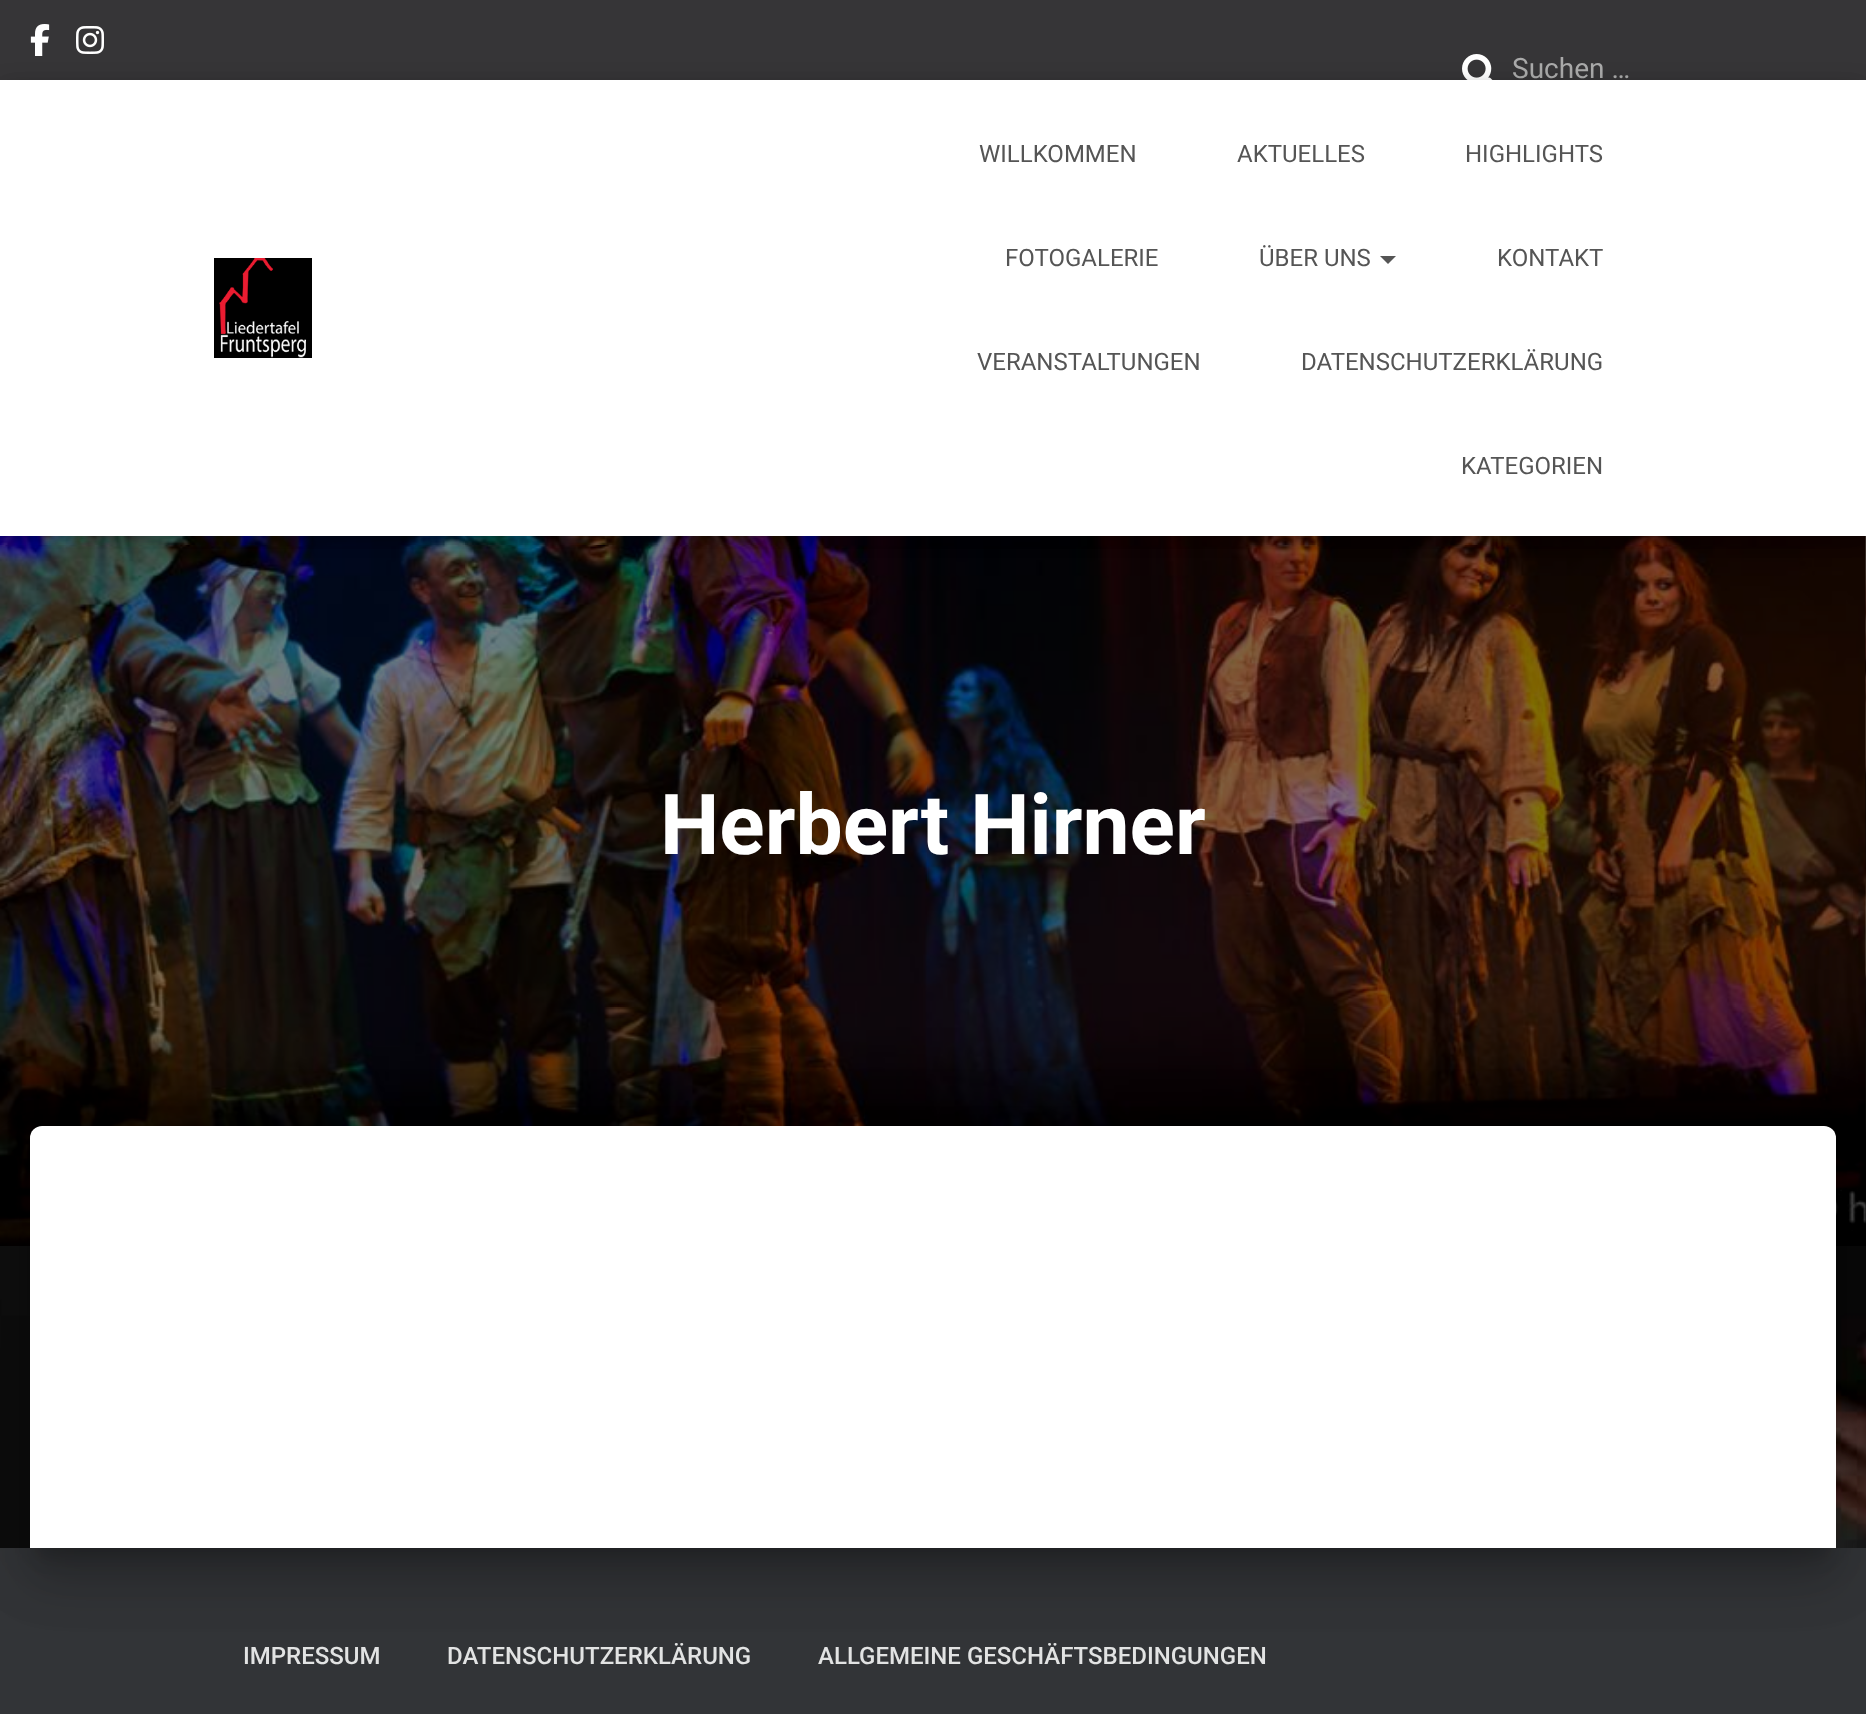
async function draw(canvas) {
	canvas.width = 1866;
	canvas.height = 1714;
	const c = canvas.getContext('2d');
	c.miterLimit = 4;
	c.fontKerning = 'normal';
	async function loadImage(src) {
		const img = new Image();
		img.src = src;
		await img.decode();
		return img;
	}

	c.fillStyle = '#fff';
	c.fillRect(0, 0, 1866, 1714);
	c.drawImage(await loadImage('img1.png'), 0, 536, 1866, 1012);
	c.fillStyle = '#363537';
	c.fillRect(0, 0, 1866, 80);
	c.drawImage(await loadImage('img2.png'), 30, 24, 20, 32);
	c.drawImage(await loadImage('img3.png'), 76, 26, 28, 28);
	c.drawImage(await loadImage('img4.png'), 1462, 54, 31, 26);
	c.font = '28px Roboto';
	c.fillStyle = '#aaa';
	c.fillText('Suchen …', 1512, 78);
	c.drawImage(await loadImage('img6.png'), 0, 536, 1866, 710);
	c.fillStyle = '#00000080';
	c.fillRect(0, 536, 1866, 710);
	c.fillStyle = '#0000001a';
	c.filter = 'blur(5px)';
	c.beginPath();
	c.rect(4, 92, 1858, 448);
	c.fill();
	c.filter = 'none';
	c.fillStyle = '#0000001f';
	c.filter = 'blur(10px)';
	c.beginPath();
	c.rect(0, 82, 1866, 456);
	c.fill();
	c.filter = 'none';
	c.fillStyle = '#0000006b';
	c.filter = 'blur(10px)';
	c.beginPath();
	c.rect(12, 94, 1842, 432);
	c.fill();
	c.filter = 'none';
	c.fillStyle = '#fff';
	c.fillRect(0, 80, 1866, 456);
	c.drawImage(await loadImage('img5.png'), 214, 258, 98, 100);
	c.font = '24px Roboto';
	c.fillStyle = '#555';
	for (const [text, x, y] of [
		['WILLKOMMEN', 979, 162],
		['AKTUELLES', 1237, 162],
		['HIGHLIGHTS', 1465, 162],
		['FOTOGALERIE', 1005, 266],
		['ÜBER UNS', 1259, 266],
	]) {
		c.fillText(text, x, y);
	}
	c.beginPath();
	c.moveTo(1380, 256);
	c.lineTo(1396, 256);
	c.lineTo(1388, 264);
	c.closePath();
	c.fill();
	for (const [text, x, y] of [
		['KONTAKT', 1497, 266],
		['VERANSTALTUNGEN', 977, 370],
		['DATENSCHUTZERKLÄRUNG', 1301, 370],
		['KATEGORIEN', 1461, 474],
	]) {
		c.fillText(text, x, y);
	}
	c.font = 'bold 84px Roboto';
	c.fillStyle = '#fff';
	c.fillText('Herbert Hirner', 660, 854);
	c.fillStyle = '#323437';
	c.fillRect(0, 1548, 1866, 166);
	c.fillStyle = '#00000033';
	c.filter = 'blur(10px)';
	c.beginPath();
	c.roundRect(40, 1152, 1786, 402, 2);
	c.fill();
	c.filter = 'none';
	c.fillStyle = '#0000001f';
	c.filter = 'blur(30px)';
	c.beginPath();
	c.roundRect(20, 1128, 1826, 442, 22);
	c.fill();
	c.filter = 'none';
	c.fillStyle = '#00000024';
	c.filter = 'blur(24px)';
	c.beginPath();
	c.roundRect(26, 1154, 1814, 430, 16);
	c.fill();
	c.filter = 'none';
	c.fillStyle = '#fff';
	c.beginPath();
	c.roundRect(30, 1126, 1806, 422, [12, 12, 0, 0]);
	c.fill();
	c.font = '500 24px Roboto';
	c.fillStyle = '#e2e3e3';
	for (const [text, x, y] of [
		['IMPRESSUM', 243, 1664],
		['DATENSCHUTZERKLÄRUNG', 447, 1664],
		['ALLGEMEINE GESCHÄFTSBEDINGUNGEN', 818, 1664],
	]) {
		c.fillText(text, x, y);
	}
}

draw(document.querySelector('canvas'));
